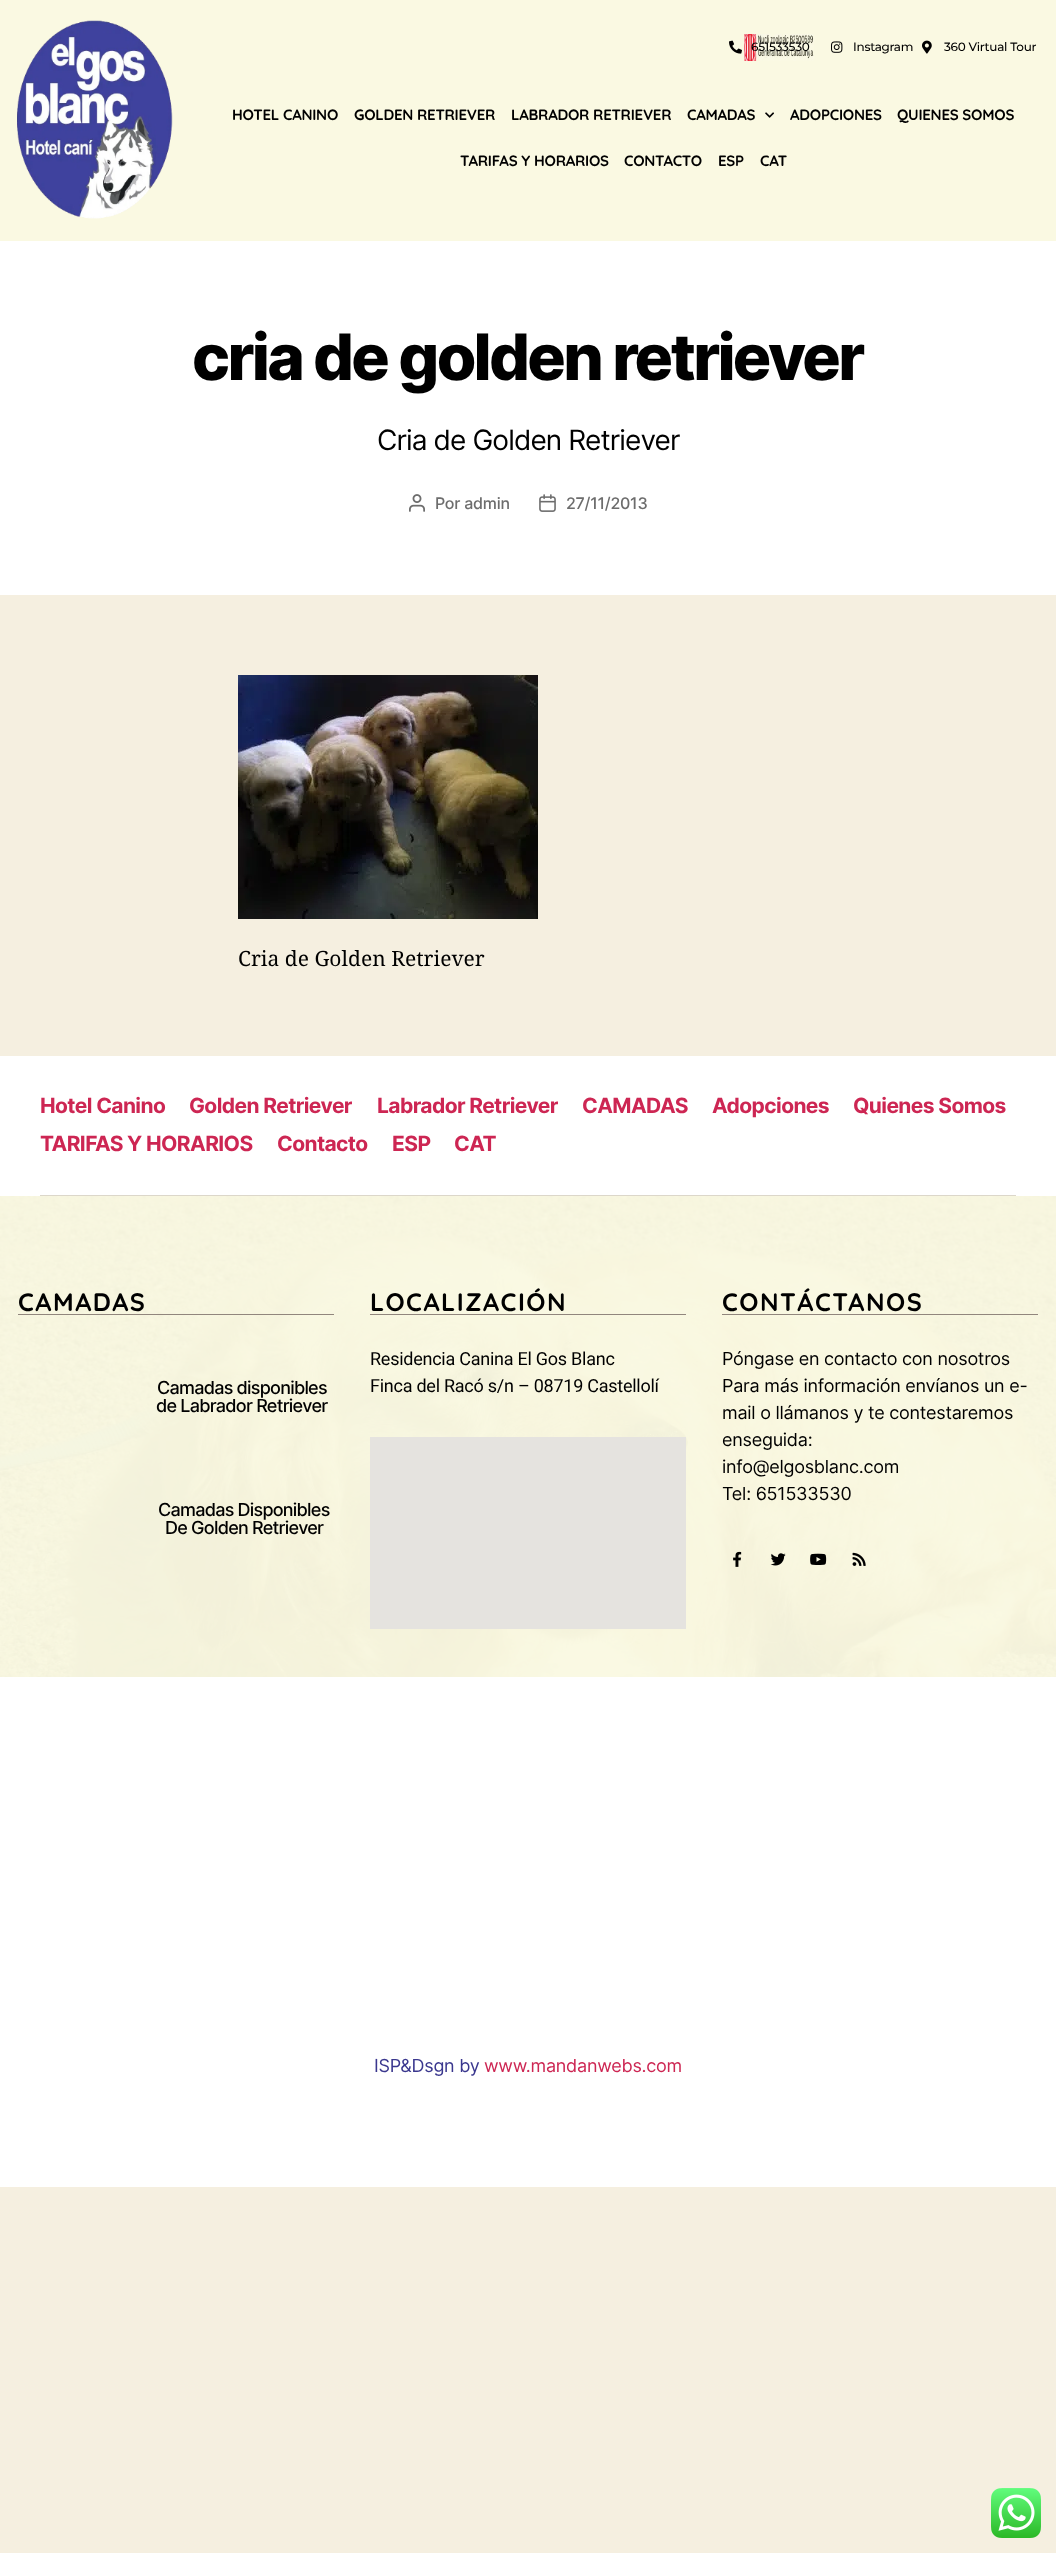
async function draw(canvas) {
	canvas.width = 1056;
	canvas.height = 2553;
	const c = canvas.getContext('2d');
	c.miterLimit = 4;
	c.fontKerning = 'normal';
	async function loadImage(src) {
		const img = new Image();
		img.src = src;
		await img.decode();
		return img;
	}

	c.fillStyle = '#f5efe0';
	c.fillRect(0, 0, 1056, 2553);
	c.fillStyle = '#faf9e2';
	c.fillRect(0, 0, 1056, 241);
	c.drawImage(await loadImage('img1.png'), 17, 20, 156, 199);
	c.drawImage(await loadImage('img2.png'), 744, 34, 70, 27);
	c.drawImage(await loadImage('img3.png'), 922, 40, 10, 14);
	c.letterSpacing = '-0.25px';
	c.font = '500 12px Montserrat';
	c.fillStyle = '#000';
	c.fillText('360 Virtual Tour', 944, 51);
	c.drawImage(await loadImage('img4.png'), 729, 40, 13, 14);
	c.fillText('651533530', 751, 51);
	c.drawImage(await loadImage('img5.png'), 831, 41, 12, 12);
	c.fillText('Instagram', 853, 51);
	c.font = 'bold 15px Quicksand';
	for (const [text, x, y] of [
		['HOTEL CANINO', 232, 120],
		['GOLDEN RETRIEVER', 354, 120],
		['LABRADOR RETRIEVER', 511, 120],
		['CAMADAS', 687, 120],
	]) {
		c.fillText(text, x, y);
	}
	c.drawImage(await loadImage('img6.png'), 765, 112, 9, 6);
	for (const [text, x, y] of [
		['ADOPCIONES', 790, 120],
		['QUIENES SOMOS', 897, 120],
		['TARIFAS Y HORARIOS', 460, 166],
		['CONTACTO', 624, 166],
		['ESP', 718, 166],
		['CAT', 760, 166],
	]) {
		c.fillText(text, x, y);
	}
	c.fillStyle = '#fff';
	c.fillRect(0, 241, 1056, 354);
	c.letterSpacing = '-2.7px';
	c.font = '800 64px Inter';
	c.fillStyle = '#000';
	c.fillText('cria de golden retriever', 192, 380);
	c.letterSpacing = '-0.9px';
	c.font = '28px Inter';
	c.fillText('Cria de Golden Retriever', 377, 450);
	c.drawImage(await loadImage('img7.png'), 409, 494, 16, 18);
	c.letterSpacing = '-0.25px';
	c.font = '500 16px Inter';
	c.fillStyle = '#6d6d6d';
	c.fillText('Por admin', 435, 509);
	c.drawImage(await loadImage('img8.png'), 539, 494, 17, 18);
	c.fillText('27/11/2013', 566, 509);
	c.drawImage(await loadImage('img9.png'), 238, 675, 300, 244);
	c.letterSpacing = '0px';
	c.font = '21px Noto Serif';
	c.fillStyle = '#000';
	c.fillText('Cria de Golden Retriever', 238, 966);
	c.fillStyle = '#fff';
	c.fillRect(0, 1056, 1056, 140);
	c.fillStyle = '#dcd7ca';
	c.fillRect(40, 1195, 976, 1);
	c.letterSpacing = '-0.6px';
	c.font = 'bold 21px Inter';
	c.fillStyle = '#cd2653';
	for (const [text, x, y] of [
		['Hotel Canino', 40, 1113],
		['Golden Retriever', 189, 1113],
		['Labrador Retriever', 377, 1113],
		['CAMADAS', 582, 1113],
		['Adopciones', 712, 1113],
		['Quienes Somos', 853, 1113],
		['TARIFAS Y HORARIOS', 40, 1151],
		['Contacto', 277, 1151],
		['ESP', 392, 1151],
		['CAT', 454, 1151],
	]) {
		c.fillText(text, x, y);
	}
	c.drawImage(await loadImage('img10.png'), 0, 1196, 1056, 481);
	c.fillStyle = '#91867d';
	c.fillRect(18, 1314, 316, 1);
	c.letterSpacing = '1.5px';
	c.font = 'bold 25.25px Quicksand';
	c.fillStyle = '#000';
	c.fillText('CAMADAS', 18, 1311);
	c.letterSpacing = '-0.75px';
	c.font = '500 18px Inter';
	for (const [text, x, y] of [
		['Camadas disponibles', 157, 1394],
		['de Labrador Retriever', 156, 1412],
		['Camadas Disponibles', 158, 1516],
		['De Golden Retriever', 165, 1534],
	]) {
		c.fillText(text, x, y);
	}
	c.fillStyle = '#91867d';
	c.fillRect(370, 1314, 316, 1);
	c.letterSpacing = '1.5px';
	c.font = 'bold 25.25px Quicksand';
	c.fillStyle = '#000';
	c.fillText('LOCALIZACIÓN', 370, 1311);
	c.letterSpacing = '-0.25px';
	c.font = '18px Roboto';
	c.fillText('Residencia Canina El Gos Blanc', 370, 1365);
	c.fillText('Finca del Racó s/n – 08719 Castellolí', 370, 1392);
	c.fillStyle = '#e5e3df';
	c.fillRect(370, 1437, 316, 192);
	c.fillStyle = '#91867d';
	c.fillRect(722, 1314, 316, 1);
	c.letterSpacing = '1.5px';
	c.font = 'bold 25.25px Quicksand';
	c.fillStyle = '#000';
	c.fillText('CONTÁCTANOS', 722, 1311);
	c.letterSpacing = '-0.25px';
	c.font = '18px Inter';
	for (const [text, x, y] of [
		['Póngase en contacto con nosotros', 722, 1365],
		['Para más información envíanos un e-', 722, 1392],
		['mail o llámanos y te contestaremos', 722, 1419],
		['enseguida:', 722, 1446],
		['info@elgosblanc.com', 722, 1473],
		['Tel: 651533530', 722, 1500],
	]) {
		c.fillText(text, x, y);
	}
	c.drawImage(await loadImage('img11.png'), 733, 1551, 9, 16);
	c.drawImage(await loadImage('img12.png'), 770, 1553, 16, 13);
	c.drawImage(await loadImage('img13.png'), 810, 1553, 17, 12);
	c.drawImage(await loadImage('img14.png'), 852, 1552, 14, 14);
	c.fillStyle = '#fff';
	c.fillRect(0, 1677, 1056, 510);
	c.fillStyle = '#3a378e';
	c.fillText('ISP&Dsgn by', 374, 2072);
	c.fillStyle = '#cd2653';
	c.fillText('www.mandanwebs.com', 484, 2072);
	c.drawImage(await loadImage('img15.png'), 991, 2488, 50, 50);
}

draw(document.querySelector('canvas'));
